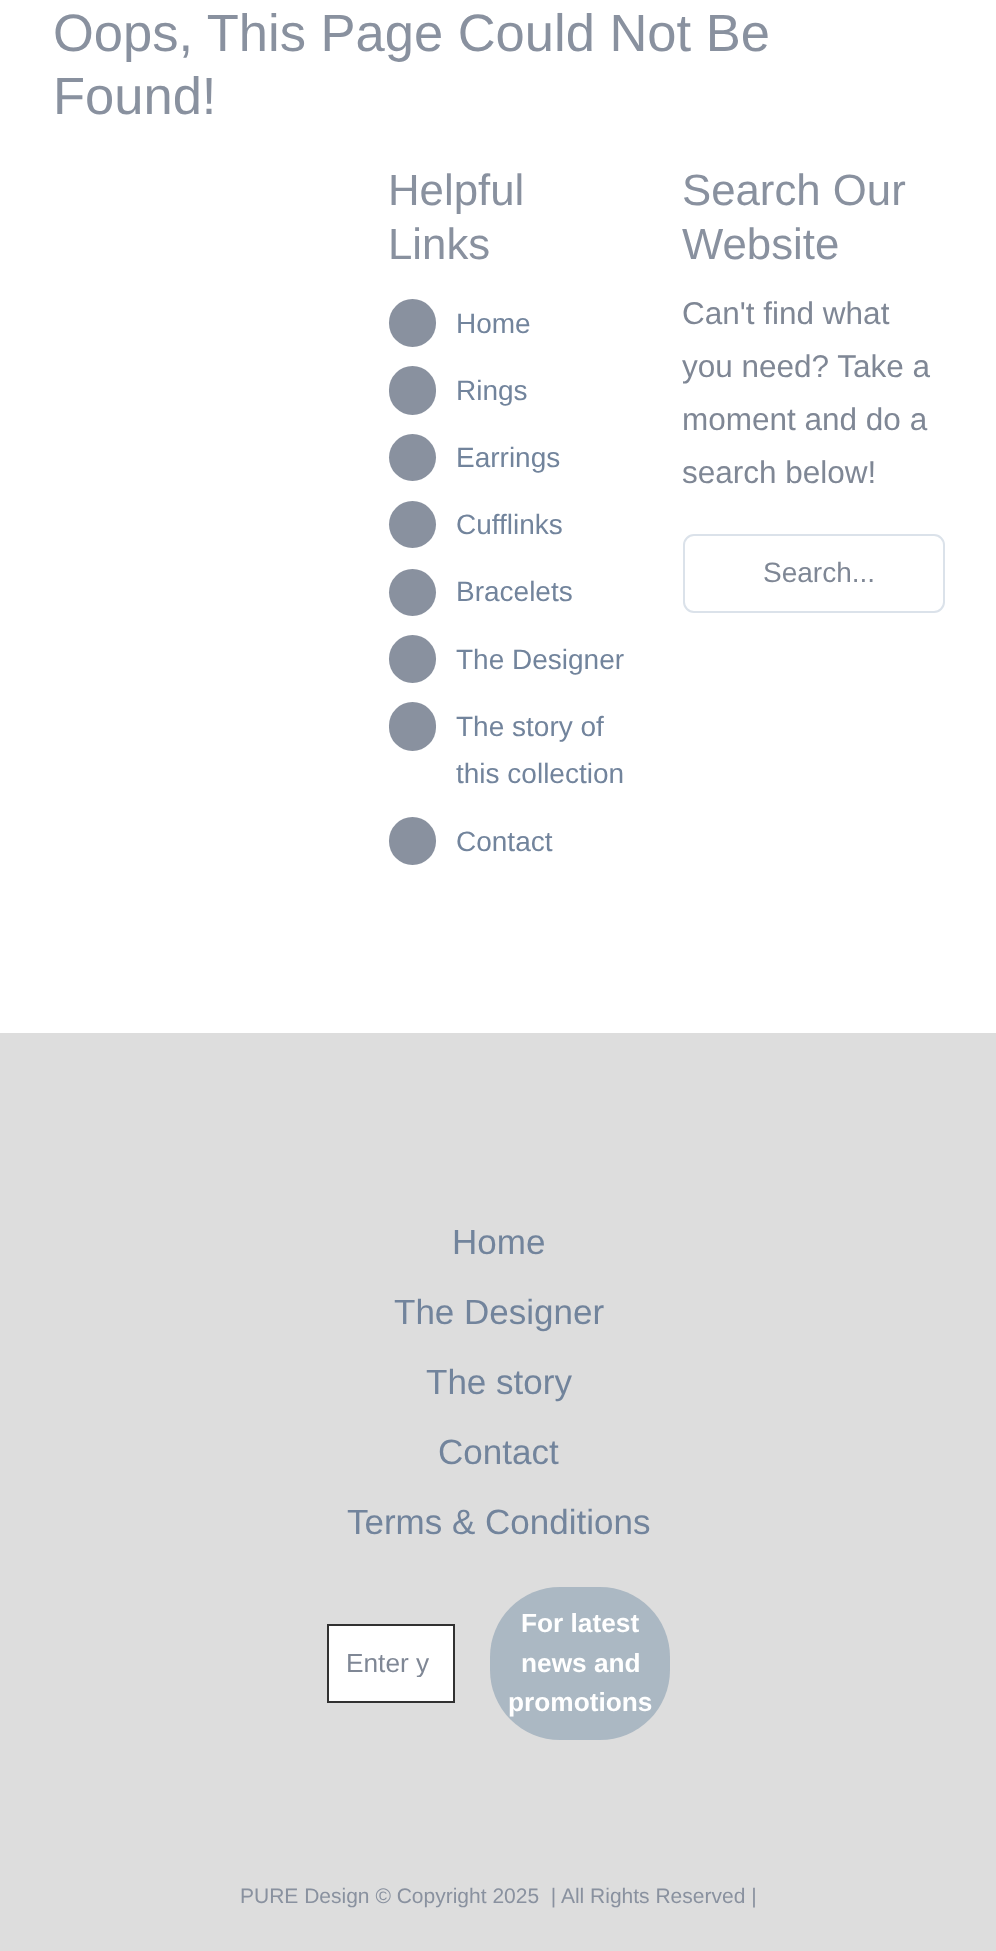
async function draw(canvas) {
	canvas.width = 996;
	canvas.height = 1951;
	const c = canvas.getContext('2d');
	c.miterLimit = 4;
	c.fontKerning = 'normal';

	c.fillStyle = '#fff';
	c.fillRect(0, 0, 996, 1951);
	c.font = '52.5px Liberation Sans';
	c.fillStyle = '#89919f';
	c.fillText('Oops, This Page Could Not Be', 53, 51);
	c.fillText('Found!', 53, 114);
	c.font = '43.75px Liberation Sans';
	c.fillText('Helpful', 388, 205);
	c.fillText('Links', 388, 259);
	c.beginPath();
	c.roundRect(389, 299, 47, 48, 23.5);
	c.fill();
	c.font = '28px Liberation Sans';
	c.fillStyle = '#72849c';
	c.fillText('Home', 456, 333);
	c.fillStyle = '#89919f';
	c.beginPath();
	c.roundRect(389, 366, 47, 49, 23.5);
	c.fill();
	c.fillStyle = '#72849c';
	c.fillText('Rings', 456, 400);
	c.fillStyle = '#89919f';
	c.beginPath();
	c.arc(412.5, 457.5, 23.5, 0, 2 * Math.PI);
	c.fill();
	c.fillStyle = '#72849c';
	c.fillText('Earrings', 456, 467);
	c.fillStyle = '#89919f';
	c.beginPath();
	c.arc(412.5, 524.5, 23.5, 0, 2 * Math.PI);
	c.fill();
	c.fillStyle = '#72849c';
	c.fillText('Cufflinks', 456, 534);
	c.fillStyle = '#89919f';
	c.beginPath();
	c.arc(412.5, 592.5, 23.5, 0, 2 * Math.PI);
	c.fill();
	c.fillStyle = '#72849c';
	c.fillText('Bracelets', 456, 601);
	c.fillStyle = '#89919f';
	c.beginPath();
	c.roundRect(389, 635, 47, 48, 23.5);
	c.fill();
	c.fillStyle = '#72849c';
	c.fillText('The Designer', 456, 669);
	c.fillStyle = '#89919f';
	c.beginPath();
	c.roundRect(389, 702, 47, 49, 23.5);
	c.fill();
	c.fillStyle = '#72849c';
	c.fillText('The story of', 456, 736);
	c.fillText('this collection', 456, 783);
	c.fillStyle = '#89919f';
	c.beginPath();
	c.roundRect(389, 817, 47, 48, 23.5);
	c.fill();
	c.fillStyle = '#72849c';
	c.fillText('Contact', 456, 851);
	c.font = '43.75px Liberation Sans';
	c.fillStyle = '#89919f';
	c.fillText('Search Our', 682, 205);
	c.fillText('Website', 682, 259);
	c.font = '31.5px Liberation Sans';
	c.fillStyle = '#7f8795';
	for (const [text, x, y] of [
		['Can\'t find what', 682, 324],
		['you need? Take a', 682, 377],
		['moment and do a', 682, 430],
		['search below!', 682, 483],
	]) {
		c.fillText(text, x, y);
	}
	c.beginPath();
	c.roundRect(684, 535, 260, 77, 10);
	c.strokeStyle = '#dbe2ea';
	c.lineWidth = 2;
	c.stroke();
	c.font = '28px Liberation Sans';
	c.fillText('Search...', 763, 582);
	c.fillStyle = '#ddd';
	c.fillRect(0, 1033, 996, 918);
	c.font = '35px Liberation Sans';
	c.fillStyle = '#72849c';
	for (const [text, x, y] of [
		['Home', 452, 1254],
		['The Designer', 394, 1324],
		['The story', 426, 1394],
		['Contact', 438, 1464],
		['Terms & Conditions', 347, 1534],
	]) {
		c.fillText(text, x, y);
	}
	c.fillStyle = '#fff';
	c.beginPath();
	c.rect(328, 1625, 126, 77);
	c.fill();
	c.strokeStyle = '#313131';
	c.stroke();
	c.save();
	c.beginPath();
	c.rect(347, 1647, 89, 30);
	c.clip();
	c.font = '26.25px Liberation Sans';
	c.fillStyle = '#7f8795';
	c.fillText('Enter y', 346, 1672);
	c.restore();
	c.fillStyle = '#abb8c3';
	c.beginPath();
	c.roundRect(490, 1587, 180, 153, 70);
	c.fill();
	c.font = 'bold 26.25px Liberation Sans';
	c.fillStyle = '#fff';
	for (const [text, x, y] of [
		['For latest', 521, 1632],
		['news and', 521, 1672],
		['promotions', 508, 1711],
	]) {
		c.fillText(text, x, y);
	}
	c.font = '21px Liberation Sans';
	c.fillStyle = '#89919f';
	c.fillText('PURE Design © Copyright 2025  | All Rights Reserved |', 240, 1903);
}

draw(document.querySelector('canvas'));
